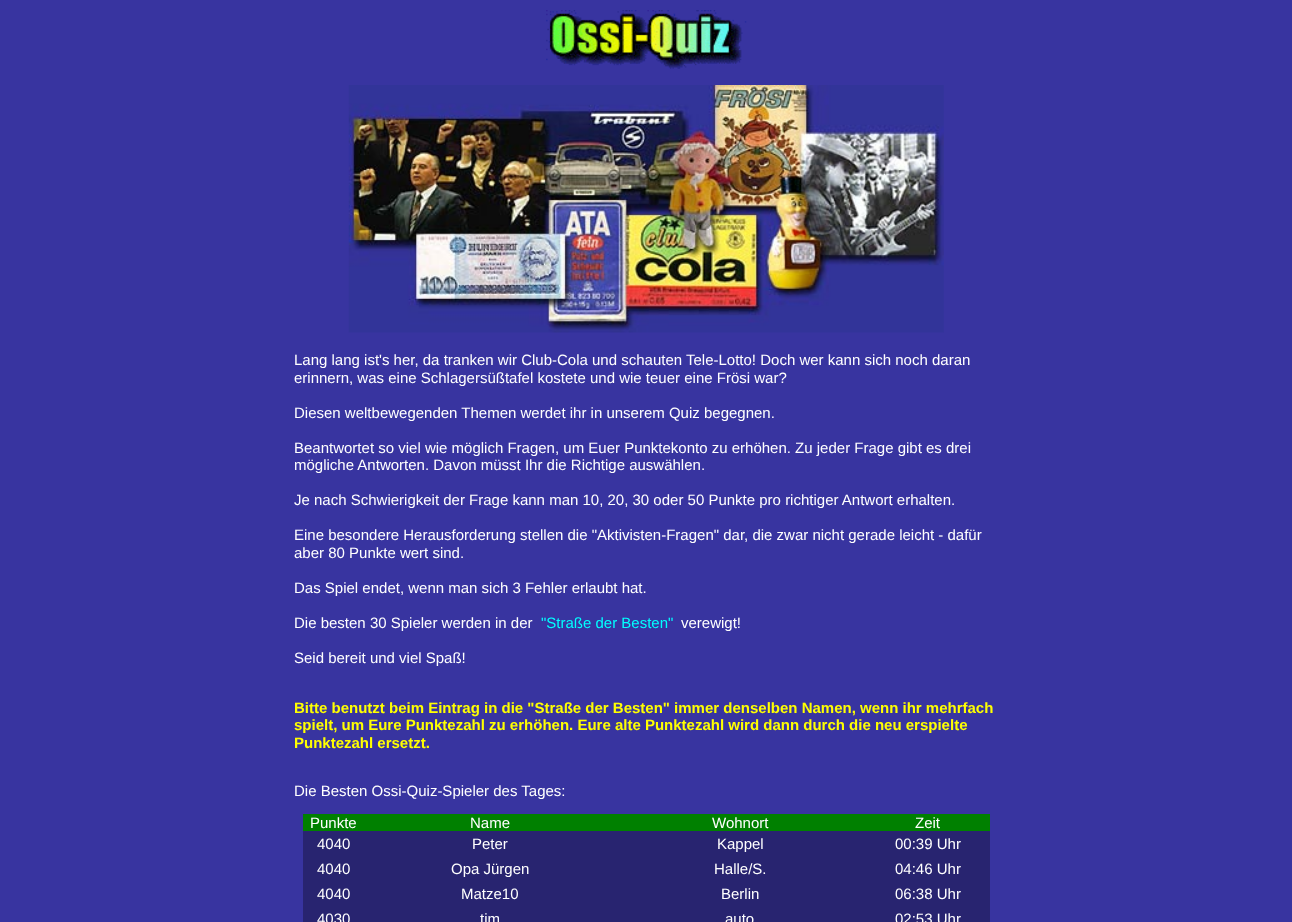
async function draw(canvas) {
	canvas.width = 1292;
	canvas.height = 922;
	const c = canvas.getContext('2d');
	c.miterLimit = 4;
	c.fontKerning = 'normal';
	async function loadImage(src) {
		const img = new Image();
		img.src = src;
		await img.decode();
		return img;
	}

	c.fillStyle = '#3834a0';
	c.fillRect(0, 0, 1292, 922);
	c.drawImage(await loadImage('img1.png'), 546, 10, 201, 59);
	c.drawImage(await loadImage('img2.png'), 348, 85, 596, 248);
	c.font = '15px Liberation Sans';
	c.fillStyle = '#fff';
	for (const [text, x, y] of [
		['Lang lang ist\'s her, da tranken wir Club-Cola und schauten Tele-Lotto! Doch wer kann sich noch daran', 294, 365],
		['erinnern, was eine Schlagersüßtafel kostete und wie teuer eine Frösi war?', 294, 383],
		['Diesen weltbewegenden Themen werdet ihr in unserem Quiz begegnen.', 294, 418],
		['Beantwortet so viel wie möglich Fragen, um Euer Punktekonto zu erhöhen. Zu jeder Frage gibt es drei', 294, 453],
		['mögliche Antworten. Davon müsst Ihr die Richtige auswählen.', 294, 470],
		['Je nach Schwierigkeit der Frage kann man 10, 20, 30 oder 50 Punkte pro richtiger Antwort erhalten.', 294, 505],
		['Eine besondere Herausforderung stellen die "Aktivisten-Fragen" dar, die zwar nicht gerade leicht - dafür', 294, 540],
		['aber 80 Punkte wert sind.', 294, 558],
		['Das Spiel endet, wenn man sich 3 Fehler erlaubt hat.', 294, 593],
		['Die besten 30 Spieler werden in der', 294, 628],
	]) {
		c.fillText(text, x, y);
	}
	c.fillStyle = '#0ff';
	c.fillText('"Straße der Besten"', 541, 628);
	c.fillStyle = '#fff';
	c.fillText('verewigt!', 681, 628);
	c.fillText('Seid bereit und viel Spaß!', 294, 663);
	c.font = 'bold 15px Liberation Sans';
	c.fillStyle = '#ff0';
	for (const [text, x, y] of [
		['Bitte benutzt beim Eintrag in die "Straße der Besten" immer denselben Namen, wenn ihr mehrfach', 294, 713],
		['spielt, um Eure Punktezahl zu erhöhen. Eure alte Punktezahl wird dann durch die neu erspielte', 294, 730],
		['Punktezahl ersetzt.', 294, 748],
	]) {
		c.fillText(text, x, y);
	}
	c.font = '15px Liberation Sans';
	c.fillStyle = '#fff';
	c.fillText('Die Besten Ossi-Quiz-Spieler des Tages:', 294, 796);
	c.fillStyle = '#008000';
	c.fillRect(303, 814, 687, 17);
	c.fillStyle = '#fff';
	for (const [text, x, y] of [
		['Punkte', 310, 828],
		['Name', 470, 828],
		['Wohnort', 712, 828],
		['Zeit', 915, 828],
	]) {
		c.fillText(text, x, y);
	}
	c.fillStyle = '#282470';
	c.fillRect(303, 831, 687, 25);
	c.fillStyle = '#fff';
	for (const [text, x, y] of [
		['4040', 317, 849],
		['Peter', 472, 849],
		['Kappel', 717, 849],
		['00:39 Uhr', 895, 849],
	]) {
		c.fillText(text, x, y);
	}
	c.fillStyle = '#282470';
	c.fillRect(303, 856, 687, 25);
	c.fillStyle = '#fff';
	for (const [text, x, y] of [
		['4040', 317, 874],
		['Opa Jürgen', 451, 874],
		['Halle/S.', 714, 874],
		['04:46 Uhr', 895, 874],
	]) {
		c.fillText(text, x, y);
	}
	c.fillStyle = '#282470';
	c.fillRect(303, 881, 687, 25);
	c.fillStyle = '#fff';
	for (const [text, x, y] of [
		['4040', 317, 899],
		['Matze10', 461, 899],
		['Berlin', 721, 899],
		['06:38 Uhr', 895, 899],
	]) {
		c.fillText(text, x, y);
	}
	c.fillStyle = '#282470';
	c.fillRect(303, 906, 687, 16);
	c.fillStyle = '#fff';
	for (const [text, x, y] of [
		['4030', 317, 924],
		['tim', 480, 924],
		['auto', 725, 924],
		['02:53 Uhr', 895, 924],
	]) {
		c.fillText(text, x, y);
	}
}

draw(document.querySelector('canvas'));
